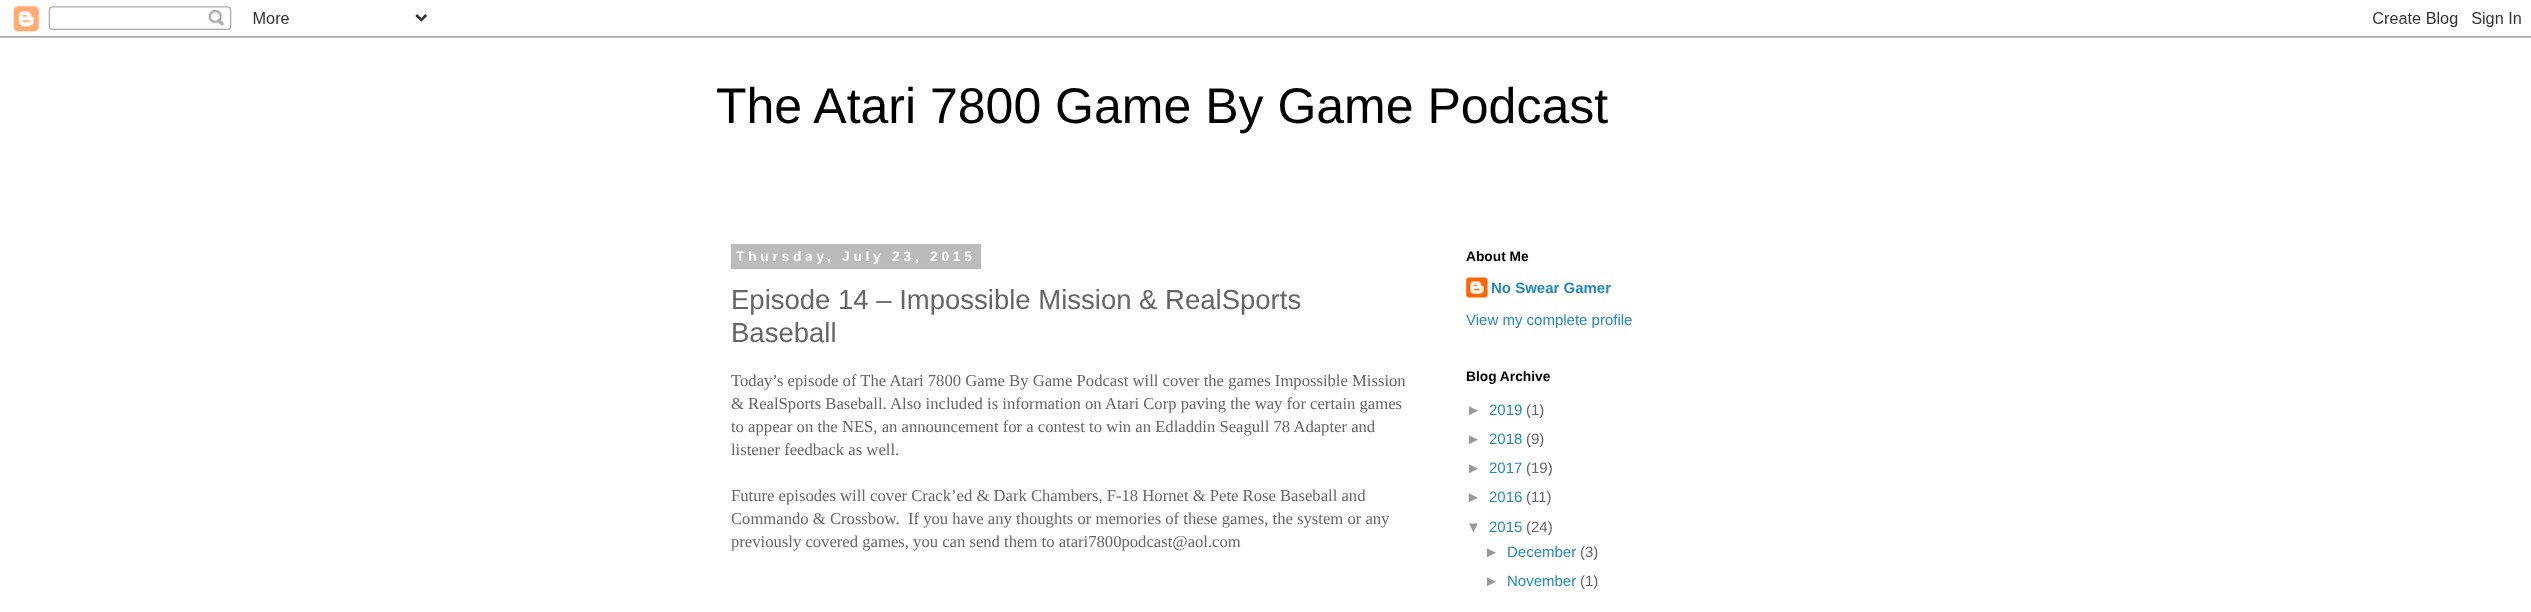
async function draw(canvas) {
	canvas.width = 2531;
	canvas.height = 612;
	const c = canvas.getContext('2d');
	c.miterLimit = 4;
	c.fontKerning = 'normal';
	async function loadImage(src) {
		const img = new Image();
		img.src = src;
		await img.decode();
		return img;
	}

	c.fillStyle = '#fff';
	c.fillRect(0, 0, 2531, 612);
	c.drawImage(await loadImage('img1.png'), 0, 6, 2531, 32);
	c.font = '50px Liberation Sans';
	c.fillStyle = '#000';
	c.fillText('The Atari 7800 Game By Game Podcast', 716, 123);
	c.fillStyle = '#bbb';
	c.fillRect(731, 244, 250, 25);
	c.letterSpacing = '3.75px';
	c.font = 'bold 13.75px Liberation Sans';
	c.fillStyle = '#fff';
	c.fillText('Thursday, July 23, 2015', 736, 261);
	c.letterSpacing = '0px';
	c.font = '27.5px Liberation Sans';
	c.fillStyle = '#666';
	c.fillText('Episode 14 – Impossible Mission & RealSports', 731, 309);
	c.fillText('Baseball', 731, 342);
	c.font = '16.65px Liberation Serif';
	for (const [text, x, y] of [
		['Today’s episode of The Atari 7800 Game By Game Podcast will cover the games Impossible Mission', 731, 386],
		['& RealSports Baseball. Also included is information on Atari Corp paving the way for certain games', 731, 409],
		['to appear on the NES, an announcement for a contest to win an Edladdin Seagull 78 Adapter and', 731, 432],
		['listener feedback as well.', 731, 455],
		['Future episodes will cover Crack’ed & Dark Chambers, F-18 Hornet & Pete Rose Baseball and', 731, 501],
		['Commando & Crossbow.  If you have any thoughts or memories of these games, the system or any', 731, 524],
		['previously covered games, you can send them to atari7800podcast@aol.com', 731, 547],
	]) {
		c.fillText(text, x, y);
	}
	c.font = 'bold 13.75px Liberation Sans';
	c.fillStyle = '#000';
	c.fillText('About Me', 1466, 261);
	c.drawImage(await loadImage('img2.png'), 1466, 277, 22, 21);
	c.font = 'bold 15px Liberation Sans';
	c.fillStyle = '#28b';
	c.fillText('No Swear Gamer', 1491, 293);
	c.font = '15px Liberation Sans';
	c.fillText('View my complete profile', 1466, 325);
	c.font = 'bold 13.75px Liberation Sans';
	c.fillStyle = '#000';
	c.fillText('Blog Archive', 1466, 381);
	c.font = '15px Liberation Sans';
	c.fillStyle = '#999';
	c.fillText('►', 1466, 415);
	c.fillStyle = '#28b';
	c.fillText('2019', 1489, 415);
	c.fillStyle = '#666';
	c.fillText('(1)', 1526, 415);
	c.fillStyle = '#999';
	c.fillText('►', 1466, 444);
	c.fillStyle = '#28b';
	c.fillText('2018', 1489, 444);
	c.fillStyle = '#666';
	c.fillText('(9)', 1526, 444);
	c.fillStyle = '#999';
	c.fillText('►', 1466, 473);
	c.fillStyle = '#28b';
	c.fillText('2017', 1489, 473);
	c.fillStyle = '#666';
	c.fillText('(19)', 1526, 473);
	c.fillStyle = '#999';
	c.fillText('►', 1466, 502);
	c.fillStyle = '#28b';
	c.fillText('2016', 1489, 502);
	c.fillStyle = '#666';
	c.fillText('(11)', 1526, 502);
	c.fillStyle = '#999';
	c.fillText('▼', 1466, 532);
	c.fillStyle = '#28b';
	c.fillText('2015', 1489, 532);
	c.fillStyle = '#666';
	c.fillText('(24)', 1526, 532);
	c.fillStyle = '#999';
	c.fillText('►', 1484, 557);
	c.fillStyle = '#28b';
	c.fillText('December', 1507, 557);
	c.fillStyle = '#666';
	c.fillText('(3)', 1580, 557);
	c.fillStyle = '#999';
	c.fillText('►', 1484, 586);
	c.fillStyle = '#28b';
	c.fillText('November', 1507, 586);
	c.fillStyle = '#666';
	c.fillText('(1)', 1580, 586);
}

draw(document.querySelector('canvas'));
